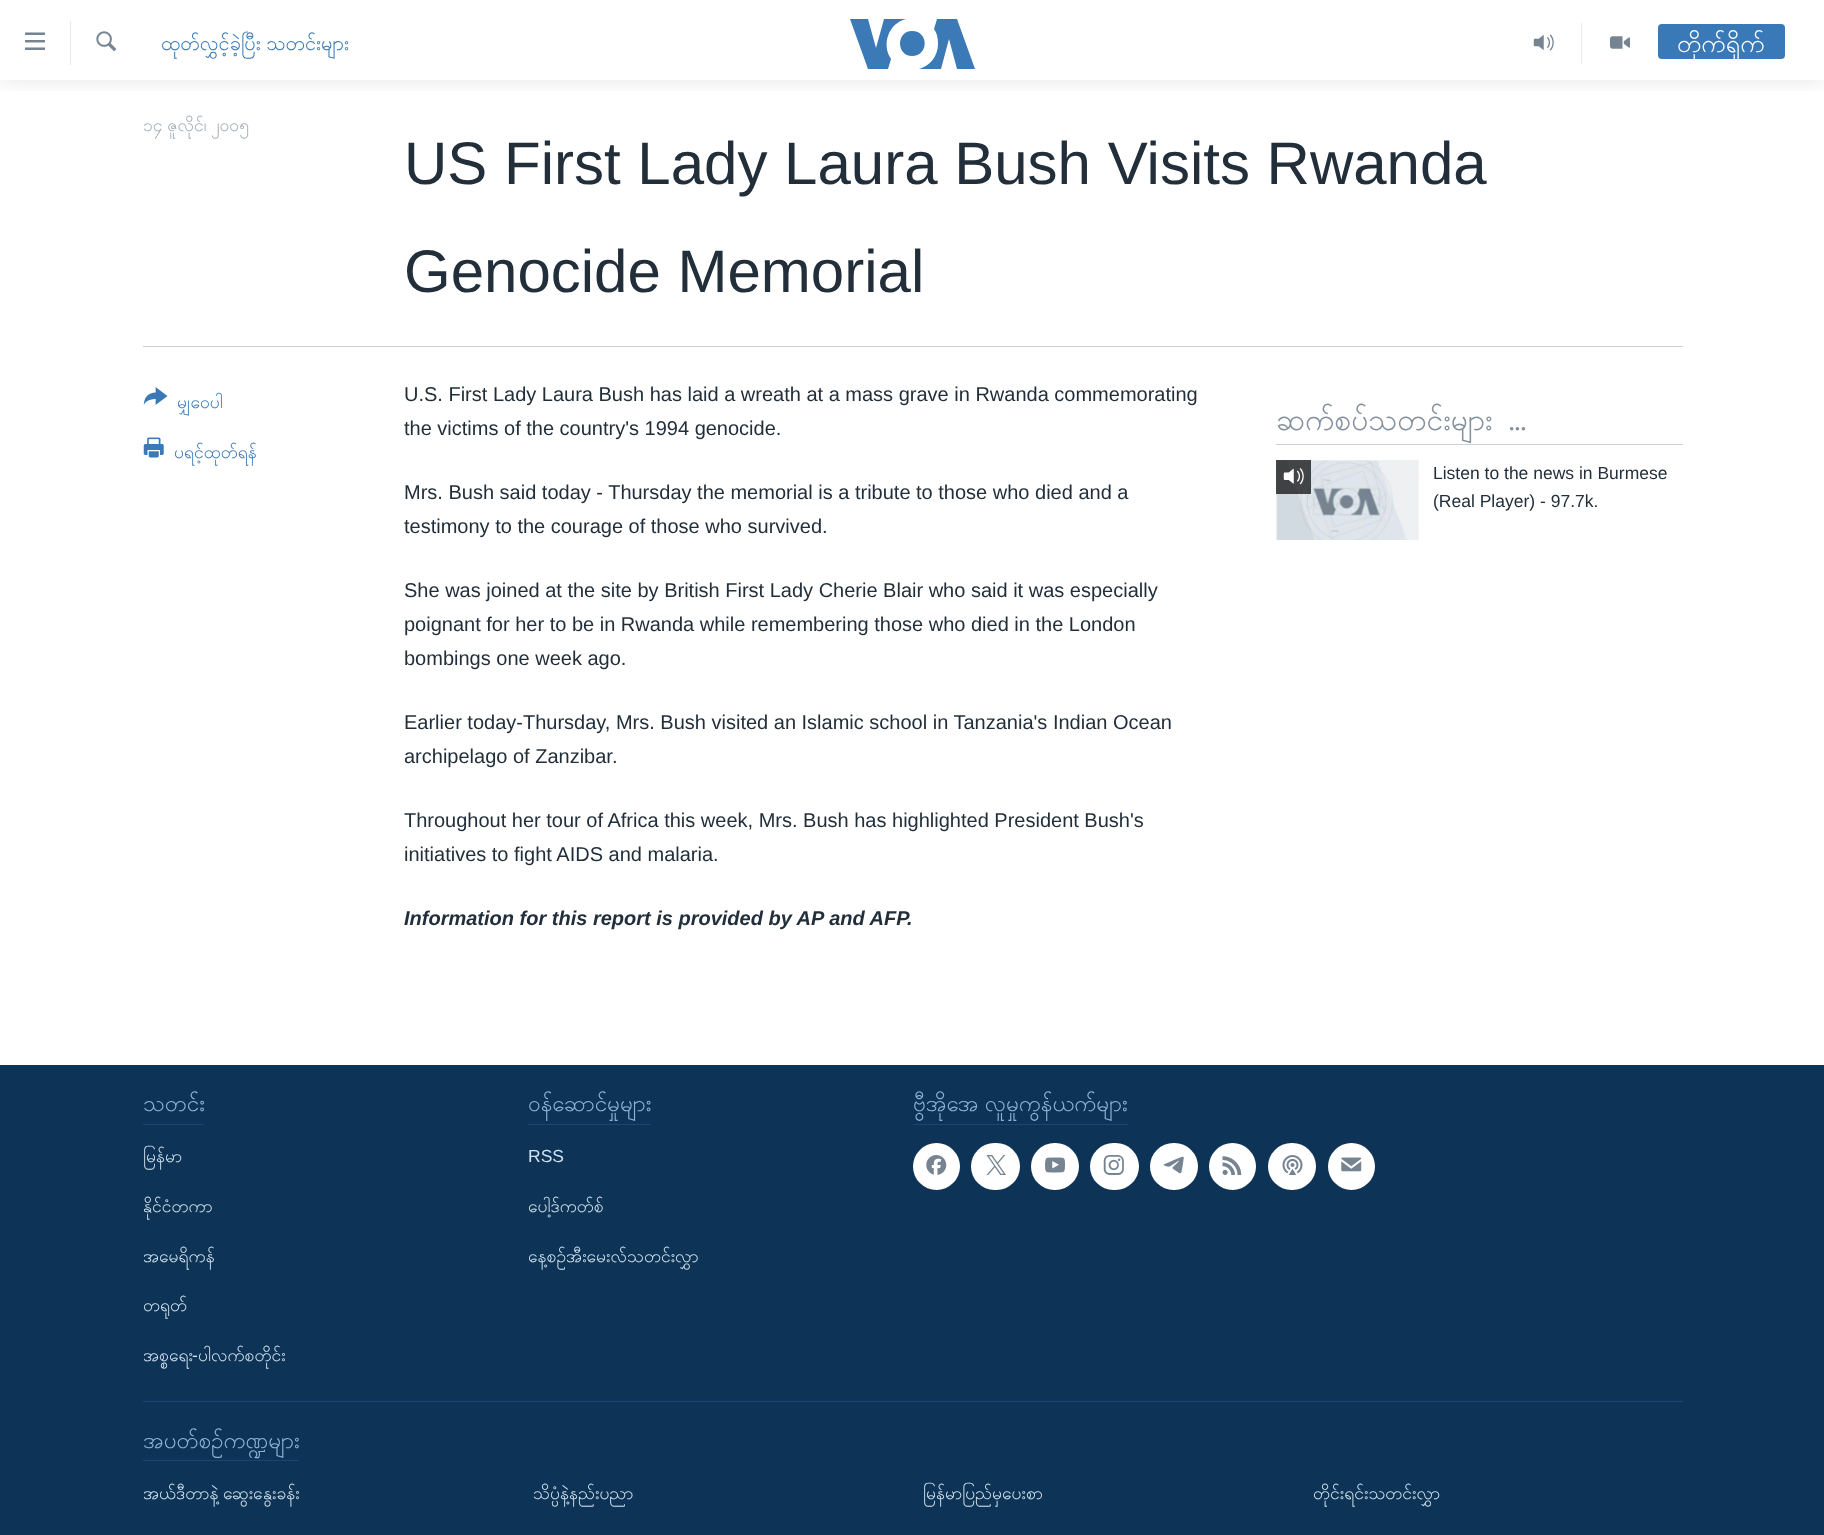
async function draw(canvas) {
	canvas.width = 1824;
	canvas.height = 1535;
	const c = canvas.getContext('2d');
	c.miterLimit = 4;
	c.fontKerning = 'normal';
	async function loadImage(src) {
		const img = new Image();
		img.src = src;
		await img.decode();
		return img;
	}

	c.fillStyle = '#fff';
	c.fillRect(0, 0, 1824, 1535);
	c.save();
	c.beginPath();
	c.rect(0, 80, 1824, 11);
	c.clip();
	c.fillStyle = '#0000001a';
	c.filter = 'blur(12.5px)';
	c.beginPath();
	c.rect(0, 0, 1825, 80);
	c.fill();
	c.filter = 'none';
	c.restore();
	c.drawImage(await loadImage('img1.png'), 25, 32, 20, 18);
	c.fillStyle = '#ebebeb';
	c.fillRect(70, 21, 1, 44);
	c.drawImage(await loadImage('img2.png'), 96, 31, 21, 21);
	c.save();
	c.beginPath();
	c.rect(161, 26, 189, 34);
	c.clip();
	c.wordSpacing = '-2px';
	c.font = '20px Padauk';
	c.fillStyle = '#3a79b7';
	c.fillText('ထုတ်လွှင့်ခဲ့ပြီး သတင်းများ', 161, 50);
	c.restore();
	c.fillStyle = '#3b79b7';
	c.beginPath();
	c.moveTo(891, 59);
	c.lineTo(888, 69);
	c.lineTo(868, 69);
	c.lineTo(850, 19);
	c.lineTo(868, 19);
	c.lineTo(876, 48);
	c.lineTo(884, 19);
	c.lineTo(906, 19);
	c.bezierCurveTo(889, 23, 881, 44, 891, 59);
	c.closePath();
	c.moveTo(912, 31);
	c.bezierCurveTo(896, 31, 896, 56, 912, 56);
	c.bezierCurveTo(929, 56, 929, 31, 912, 31);
	c.closePath();
	c.moveTo(938, 44);
	c.bezierCurveTo(938, 56, 930, 66, 919, 69);
	c.lineTo(941, 69);
	c.lineTo(949, 39);
	c.lineTo(957, 69);
	c.lineTo(975, 69);
	c.lineTo(957, 19);
	c.lineTo(937, 19);
	c.lineTo(934, 29);
	c.bezierCurveTo(937, 33, 938, 38, 938, 44);
	c.closePath();
	c.fill();
	c.fillStyle = '#ebebeb';
	c.fillRect(1581, 23, 1, 41);
	c.drawImage(await loadImage('img3.png'), 1533, 34, 21, 17);
	c.drawImage(await loadImage('img4.png'), 1610, 36, 20, 13);
	c.fillStyle = '#3a79b7';
	c.beginPath();
	c.roundRect(1658, 24, 127, 35, 4);
	c.fill();
	c.font = '25px Padauk';
	c.fillStyle = '#fff';
	c.fillText('တိုက်ရိုက်', 1677, 52);
	c.wordSpacing = '-2px';
	c.font = '17.5px Padauk';
	c.fillStyle = '#a1aab4';
	c.fillText('၁၄ ဇူလိုင်၊ ၂၀၀၅', 143, 131);
	c.wordSpacing = '0px';
	c.font = '60px Liberation Sans';
	c.fillStyle = '#222f3a';
	c.fillText('US First Lady Laura Bush Visits Rwanda', 404, 184);
	c.fillText('Genocide Memorial', 404, 292);
	c.fillStyle = '#cbd1d6';
	c.fillRect(143, 346, 1540, 1);
	c.drawImage(await loadImage('img5.png'), 143, 387, 25, 18);
	c.font = '17.5px Padauk';
	c.fillStyle = '#3a79b7';
	c.fillText('မျှဝေပါ', 177, 408);
	c.drawImage(await loadImage('img6.png'), 143, 437, 21, 21);
	c.fillText('ပရင့်ထုတ်ရန်', 174, 458);
	c.font = '20px Liberation Sans';
	c.fillStyle = '#222f3a';
	for (const [text, x, y] of [
		['U.S. First Lady Laura Bush has laid a wreath at a mass grave in Rwanda commemorating', 404, 401],
		['the victims of the country\'s 1994 genocide.', 404, 435],
		['Mrs. Bush said today - Thursday the memorial is a tribute to those who died and a', 404, 499],
		['testimony to the courage of those who survived.', 404, 533],
		['She was joined at the site by British First Lady Cherie Blair who said it was especially', 404, 597],
		['poignant for her to be in Rwanda while remembering those who died in the London', 404, 631],
		['bombings one week ago.', 404, 665],
		['Earlier today-Thursday, Mrs. Bush visited an Islamic school in Tanzania\'s Indian Ocean', 404, 729],
		['archipelago of Zanzibar.', 404, 763],
		['Throughout her tour of Africa this week, Mrs. Bush has highlighted President Bush\'s', 404, 827],
		['initiatives to fight AIDS and malaria.', 404, 861],
	]) {
		c.fillText(text, x, y);
	}
	c.font = 'italic bold 20px Liberation Sans';
	c.fillText('Information for this report is provided by AP and AFP.', 404, 925);
	c.fillStyle = '#cbd1d6';
	c.fillRect(1276, 444, 407, 1);
	c.wordSpacing = '5px';
	c.font = '30px Padauk';
	c.fillStyle = '#84919d';
	c.fillText('ဆက်စပ်သတင်းများ ...', 1276, 430);
	c.fillStyle = '#f6f7f8';
	c.fillRect(1276, 460, 143, 80);
	c.drawImage(await loadImage('img7.png'), 1276, 460, 143, 80);
	c.fillStyle = '#000000b3';
	c.fillRect(1276, 460, 35, 34);
	c.drawImage(await loadImage('img8.png'), 1283, 468, 21, 17);
	c.wordSpacing = '0px';
	c.font = '17.5px Liberation Sans';
	c.fillStyle = '#222f3a';
	c.fillText('Listen to the news in Burmese', 1433, 479);
	c.fillText('(Real Player) - 97.7k.', 1433, 507);
	c.fillStyle = '#0d3456';
	c.fillRect(0, 1065, 1824, 470);
	c.fillStyle = '#134976';
	c.fillRect(143, 1124, 61, 1);
	c.font = '22.5px Padauk';
	c.fillStyle = '#8db3d4';
	c.fillText('သတင်း', 143, 1111);
	c.font = '17.5px Padauk';
	c.fillStyle = '#d1e1ee';
	for (const [text, x, y] of [
		['မြန်မာ', 143, 1162],
		['နိုင်ငံတကာ', 143, 1212],
		['အမေရိကန်', 143, 1262],
		['တရုတ်', 143, 1311],
		['အစ္စရေး', 143, 1361],
	]) {
		c.fillText(text, x, y);
	}
	c.font = '17.5px Liberation Sans';
	c.fillText('-', 192, 1361);
	c.font = '17.5px Padauk';
	c.fillText('ပါလက်စတိုင်း', 198, 1361);
	c.fillStyle = '#134976';
	c.fillRect(528, 1124, 123, 1);
	c.font = '22.5px Padauk';
	c.fillStyle = '#8db3d4';
	c.fillText('၀န်ဆောင်မှုများ', 528, 1111);
	c.font = '17.5px Liberation Sans';
	c.fillStyle = '#d1e1ee';
	c.fillText('RSS', 528, 1162);
	c.font = '17.5px Padauk';
	c.fillText('ပေါ့ဒ်ကတ်စ်', 528, 1212);
	c.fillText('နေ့စဉ်အီးမေးလ်သတင်းလွှာ', 528, 1262);
	c.fillStyle = '#134976';
	c.fillRect(913, 1124, 215, 1);
	c.wordSpacing = '-2px';
	c.font = '22.5px Padauk';
	c.fillStyle = '#8db3d4';
	c.fillText('ဗွီအိုအေ လူမှုကွန်ယက်များ', 913, 1111);
	c.fillStyle = '#fff';
	c.beginPath();
	c.arc(936.5, 1166.5, 23.5, 0, 2 * Math.PI);
	c.fill();
	c.drawImage(await loadImage('img9.png'), 926, 1155, 21, 20);
	c.beginPath();
	c.roundRect(971, 1143, 49, 47, 23.5);
	c.fill();
	c.drawImage(await loadImage('img10.png'), 986, 1155, 20, 20);
	c.beginPath();
	c.roundRect(1031, 1143, 48, 47, 23.5);
	c.fill();
	c.drawImage(await loadImage('img11.png'), 1045, 1157, 20, 16);
	c.beginPath();
	c.roundRect(1090, 1143, 49, 47, 23.5);
	c.fill();
	c.drawImage(await loadImage('img12.png'), 1103, 1155, 21, 20);
	c.beginPath();
	c.roundRect(1150, 1143, 48, 47, 23.5);
	c.fill();
	c.drawImage(await loadImage('img13.png'), 1163, 1156, 21, 18);
	c.beginPath();
	c.arc(1232.5, 1166.5, 23.5, 0, 2 * Math.PI);
	c.fill();
	c.drawImage(await loadImage('img14.png'), 1222, 1156, 20, 19);
	c.beginPath();
	c.roundRect(1268, 1143, 48, 47, 23.5);
	c.fill();
	c.drawImage(await loadImage('img15.png'), 1282, 1155, 21, 20);
	c.beginPath();
	c.arc(1351.5, 1166.5, 23.5, 0, 2 * Math.PI);
	c.fill();
	c.drawImage(await loadImage('img16.png'), 1341, 1157, 21, 15);
	c.fillStyle = '#134976';
	c.fillRect(143, 1401, 1540, 1);
	c.fillRect(143, 1460, 156, 1);
	c.wordSpacing = '0px';
	c.fillStyle = '#8db3d4';
	c.fillText('အပတ်စဉ်ကဏ္ဍများ', 143, 1448);
	c.wordSpacing = '-2px';
	c.font = '17.5px Padauk';
	c.fillStyle = '#d1e1ee';
	c.fillText('အယ်ဒီတာနဲ့ ဆွေးနွေးခန်း', 143, 1499);
	c.wordSpacing = '0px';
	for (const [text, x, y] of [
		['သိပ္ပံနဲ့နည်းပညာ', 533, 1499],
		['မြန်မာပြည်မှပေးစာ', 923, 1499],
		['တိုင်းရင်းသတင်းလွှာ', 1313, 1499],
	]) {
		c.fillText(text, x, y);
	}
}

draw(document.querySelector('canvas'));
